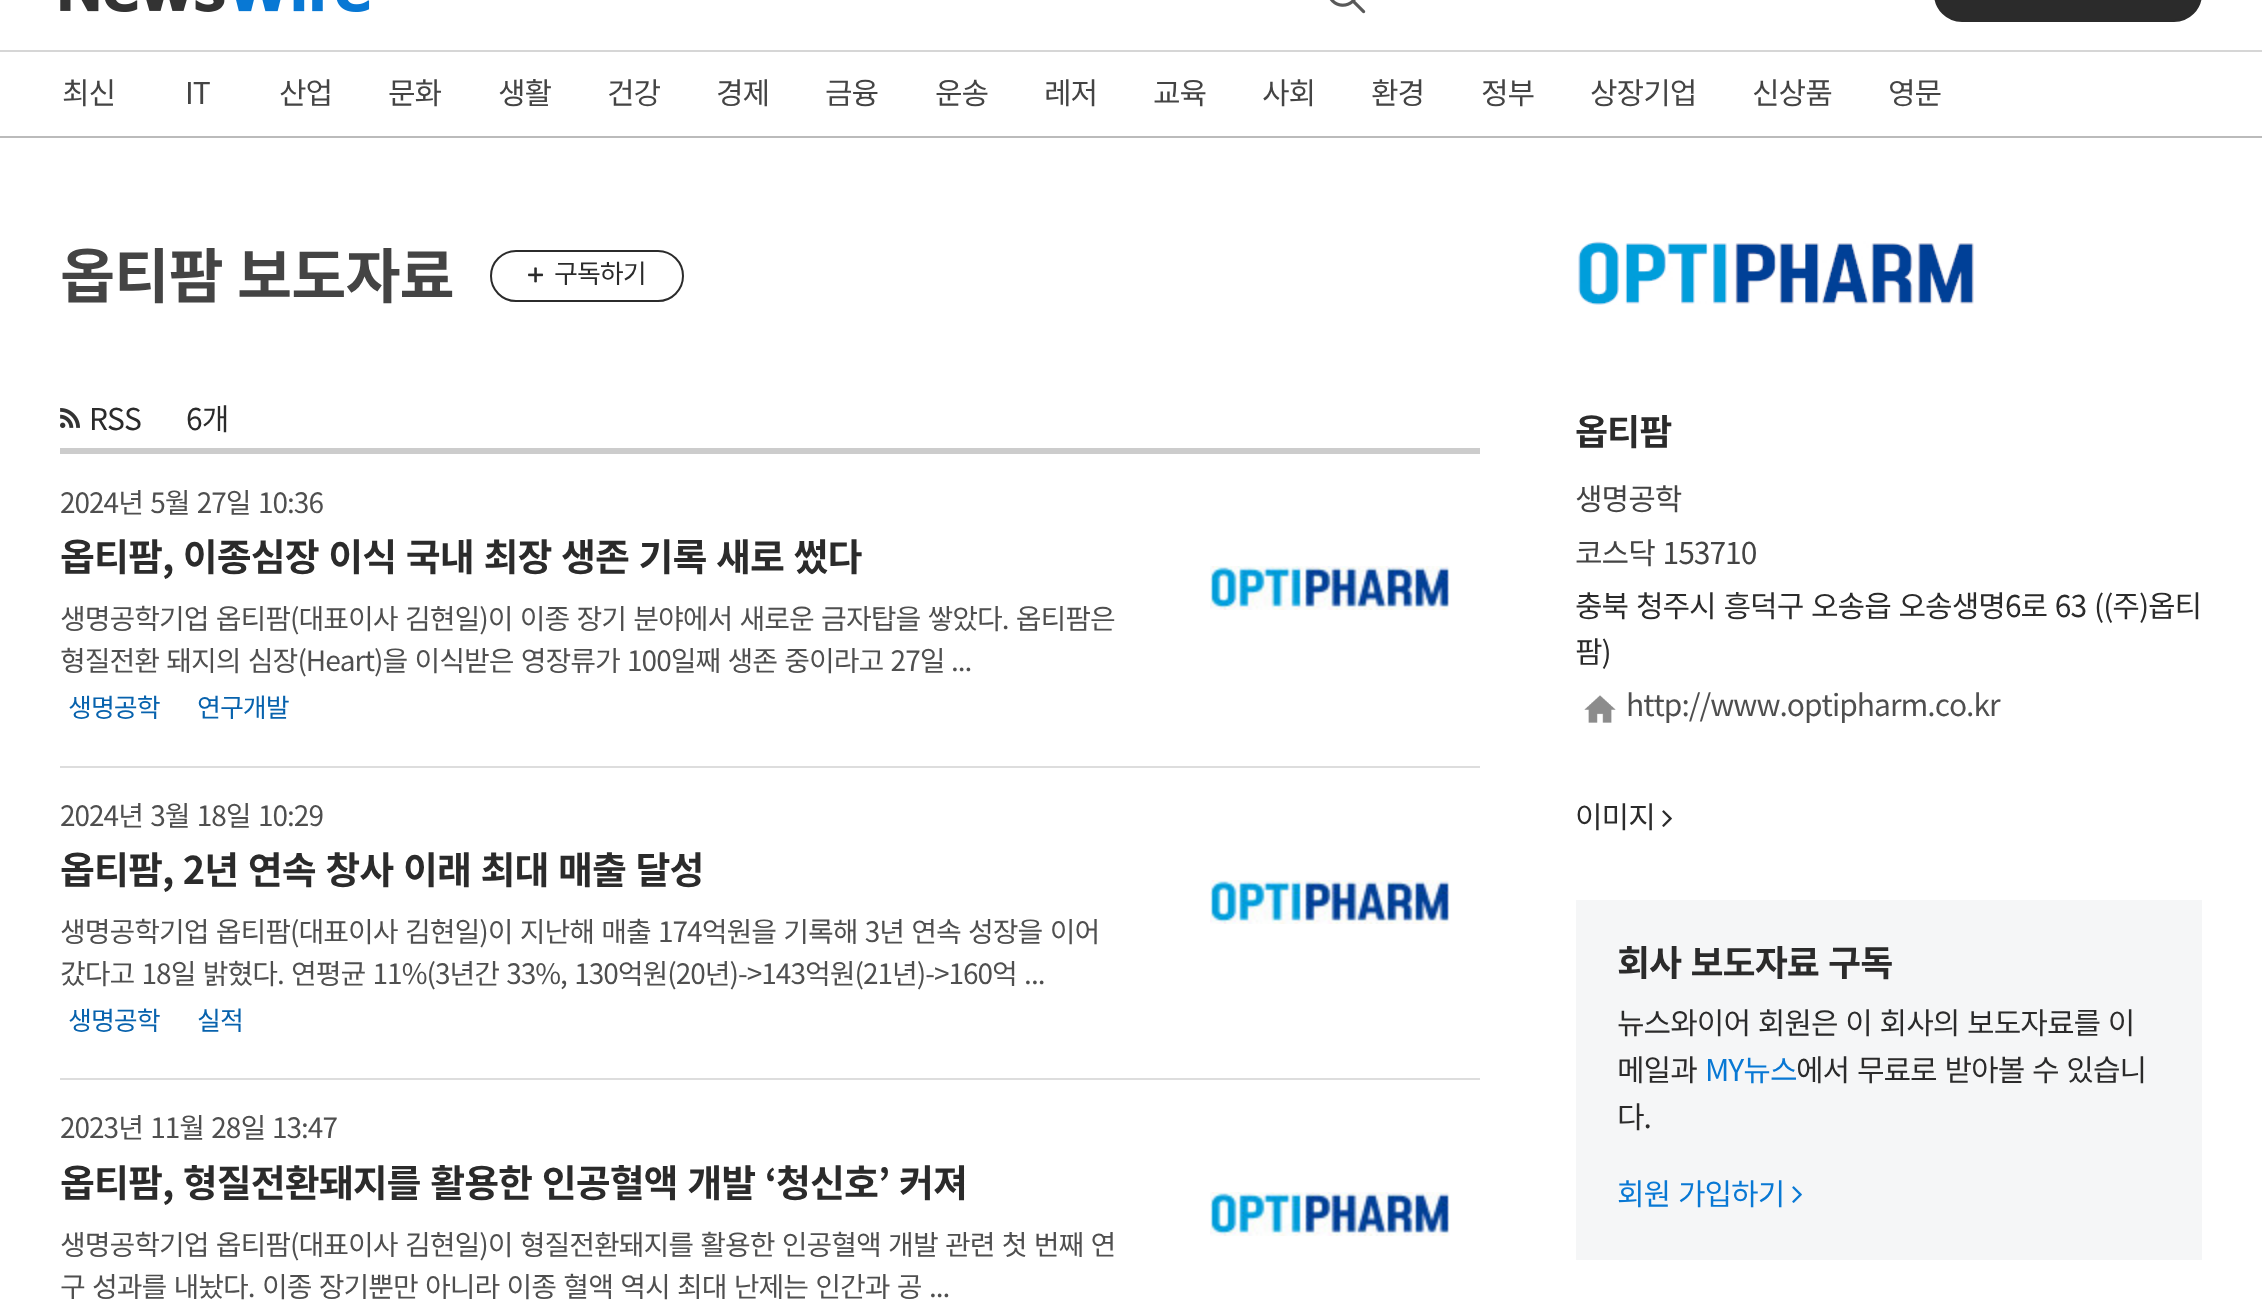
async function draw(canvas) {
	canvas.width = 2262;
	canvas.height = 1302;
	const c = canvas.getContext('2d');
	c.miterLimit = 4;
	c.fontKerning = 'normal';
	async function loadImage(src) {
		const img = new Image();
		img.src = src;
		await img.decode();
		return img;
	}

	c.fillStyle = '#fff';
	c.fillRect(0, 0, 2262, 1302);
	c.drawImage(await loadImage('img1.png'), 60, 0, 310, 12);
	c.drawImage(await loadImage('img2.png'), 1329, 0, 37, 14);
	c.fillStyle = '#2b2b2b';
	c.beginPath();
	c.roundRect(1935, -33, 266, 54, 31);
	c.fill();
	c.strokeStyle = '#2b2b2b';
	c.lineWidth = 2;
	c.stroke();
	c.fillStyle = '#d6d6d6';
	c.fillRect(0, 50, 2262, 2);
	c.fillStyle = '#bbb';
	c.fillRect(0, 136, 2262, 2);
	c.letterSpacing = '-1px';
	c.font = '30px Noto Sans KR';
	c.fillStyle = '#444';
	for (const [text, x, y] of [
		['최신', 62, 104],
		['IT', 185, 104],
		['산업', 279, 104],
		['문화', 388, 104],
		['생활', 498, 104],
		['건강', 607, 104],
		['경제', 716, 104],
		['금융', 825, 104],
		['운송', 935, 104],
		['레저', 1044, 104],
		['교육', 1153, 104],
		['사회', 1262, 104],
		['환경', 1371, 104],
		['정부', 1481, 104],
		['상장기업', 1590, 104],
		['신상품', 1752, 104],
		['영문', 1888, 104],
	]) {
		c.fillText(text, x, y);
	}
	c.font = 'bold 60px Noto Sans KR';
	c.fillText('옵티팜', 60, 298);
	c.fillText('보도자료', 237, 298);
	c.beginPath();
	c.roundRect(491, 251, 192, 50, 25);
	c.stroke();
	c.drawImage(await loadImage('img3.png'), 528, 267, 16, 16);
	c.font = '26px Noto Sans KR';
	c.fillStyle = '#2b2b2b';
	c.fillText('구독하기', 554, 283);
	c.drawImage(await loadImage('img4.png'), 1578, 241, 396, 64);
	c.fillStyle = '#ccc';
	c.fillRect(60, 448, 1420, 6);
	c.drawImage(await loadImage('img5.png'), 60, 408, 20, 20);
	c.font = '30px Noto Sans KR';
	c.fillStyle = '#2b2b2b';
	c.fillText('RSS', 89, 430);
	c.fillText('6개', 186, 430);
	c.fillStyle = '#ddd';
	c.fillRect(60, 766, 1420, 2);
	c.wordSpacing = '2px';
	c.font = '28px Noto Sans KR';
	c.fillStyle = '#4f4f4f';
	c.fillText('2024년 5월 27일', 60, 513);
	c.wordSpacing = '0px';
	c.fillText('10:36', 258, 513);
	c.wordSpacing = '2px';
	c.font = 'bold 38px Noto Sans KR';
	c.fillStyle = '#2b2b2b';
	c.fillText('옵티팜, 이종심장 이식 국내 최장 생존 기록 새로 썼다', 60, 571);
	c.font = '28px Noto Sans KR';
	c.fillStyle = '#4f4f4f';
	c.fillText('생명공학기업 옵티팜(대표이사 김현일)이 이종 장기 분야에서 새로운 금자탑을 쌓았다. 옵티팜은', 60, 629);
	c.fillText('형질전환 돼지의 심장(Heart)을 이식받은 영장류가 100일째 생존 중이라고 27일', 60, 671);
	c.wordSpacing = '0px';
	c.fillText('...', 951, 671);
	c.font = '26px Noto Sans KR';
	c.fillStyle = '#0762ad';
	c.fillText('생명공학', 68, 717);
	c.fillText('연구개발', 197, 717);
	c.drawImage(await loadImage('img6.png'), 1210, 566, 240, 44);
	c.fillStyle = '#ddd';
	c.fillRect(60, 1078, 1420, 2);
	c.wordSpacing = '2px';
	c.font = '28px Noto Sans KR';
	c.fillStyle = '#4f4f4f';
	c.fillText('2024년 3월 18일', 60, 826);
	c.wordSpacing = '0px';
	c.fillText('10:29', 258, 826);
	c.wordSpacing = '2px';
	c.font = 'bold 38px Noto Sans KR';
	c.fillStyle = '#2b2b2b';
	c.fillText('옵티팜, 2년 연속 창사 이래 최대 매출 달성', 60, 884);
	c.font = '28px Noto Sans KR';
	c.fillStyle = '#4f4f4f';
	c.fillText('생명공학기업 옵티팜(대표이사 김현일)이 지난해 매출 174억원을 기록해 3년 연속 성장을 이어', 60, 942);
	c.fillText('갔다고 18일 밝혔다. 연평균 11%(3년간 33%, 130억원(20년)->143억원(21년)->160억 ...', 60, 984);
	c.wordSpacing = '0px';
	c.font = '26px Noto Sans KR';
	c.fillStyle = '#0762ad';
	c.fillText('생명공학', 68, 1030);
	c.fillText('실적', 197, 1030);
	c.drawImage(await loadImage('img6.png'), 1210, 880, 240, 44);
	c.wordSpacing = '2px';
	c.font = '28px Noto Sans KR';
	c.fillStyle = '#4f4f4f';
	c.fillText('2023년 11월 28일', 60, 1138);
	c.wordSpacing = '0px';
	c.fillText('13:47', 272, 1138);
	c.wordSpacing = '2px';
	c.font = 'bold 38px Noto Sans KR';
	c.fillStyle = '#2b2b2b';
	c.fillText('옵티팜, 형질전환돼지를 활용한 인공혈액 개발 ‘청신호’ 커져', 60, 1197);
	c.font = '28px Noto Sans KR';
	c.fillStyle = '#4f4f4f';
	c.fillText('생명공학기업 옵티팜(대표이사 김현일)이 형질전환돼지를 활용한 인공혈액 개발 관련 첫 번째 연', 60, 1255);
	c.fillText('구 성과를 내놨다. 이종 장기뿐만 아니라 이종 혈액 역시 최대 난제는 인간과 공 ...', 60, 1297);
	c.drawImage(await loadImage('img6.png'), 1210, 1192, 240, 44);
	c.wordSpacing = '0px';
	c.font = 'bold 36px Noto Sans KR';
	c.fillStyle = '#2b2b2b';
	c.fillText('옵티팜', 1575, 445);
	c.font = '30px Noto Sans KR';
	c.fillStyle = '#444';
	c.fillText('생명공학', 1575, 510);
	c.wordSpacing = '2px';
	c.fillText('코스닥 153710', 1575, 564);
	c.fillStyle = '#2b2b2b';
	c.fillText('충북 청주시 흥덕구 오송읍 오송생명6로 63', 1575, 617);
	c.wordSpacing = '0px';
	c.fillText('((주)옵티', 2094, 617);
	c.fillText('팜)', 1575, 663);
	c.drawImage(await loadImage('img7.png'), 1584, 695, 32, 28);
	c.fillStyle = '#4f4f4f';
	c.fillText('http://www.optipharm.co.kr', 1626, 716);
	c.fillStyle = '#2b2b2b';
	c.fillText('이미지', 1575, 828);
	c.drawImage(await loadImage('img8.png'), 1662, 810, 10, 17);
	c.fillStyle = '#f5f6f7';
	c.fillRect(1576, 900, 626, 360);
	c.wordSpacing = '2px';
	c.font = 'bold 36px Noto Sans KR';
	c.fillStyle = '#2b2b2b';
	c.fillText('회사 보도자료 구독', 1617, 976);
	c.font = '30px Noto Sans KR';
	c.fillText('뉴스와이어 회원은 이 회사의 보도자료를 이', 1617, 1034);
	c.wordSpacing = '0px';
	c.fillText('메일과', 1617, 1081);
	c.fillStyle = '#0878d4';
	c.fillText('MY뉴스', 1705, 1081);
	c.wordSpacing = '2px';
	c.fillStyle = '#2b2b2b';
	c.fillText('에서 무료로 받아볼 수 있습니', 1796, 1081);
	c.wordSpacing = '0px';
	c.fillText('다.', 1617, 1128);
	c.wordSpacing = '2px';
	c.fillStyle = '#0878d4';
	c.fillText('회원 가입하기', 1617, 1205);
	c.drawImage(await loadImage('img9.png'), 1792, 1186, 10, 17);
}

draw(document.querySelector('canvas'));
